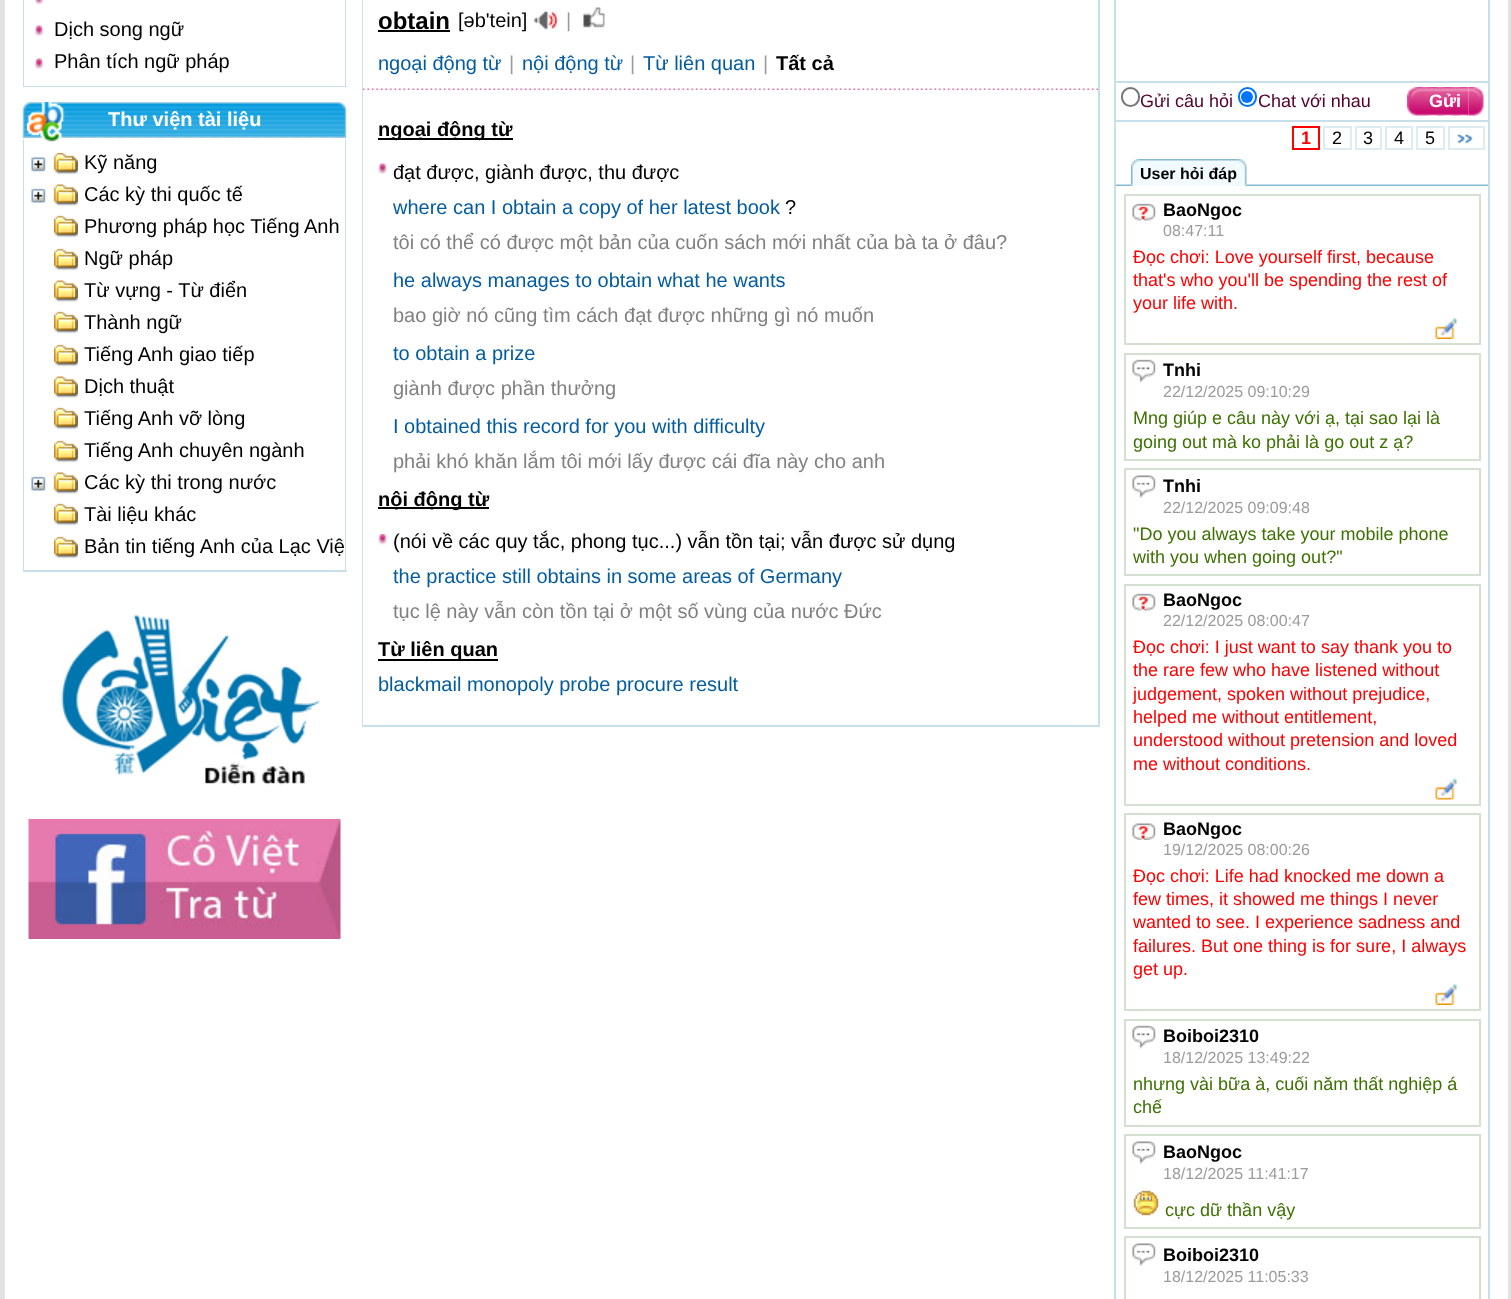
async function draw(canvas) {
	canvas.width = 1511;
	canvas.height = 1299;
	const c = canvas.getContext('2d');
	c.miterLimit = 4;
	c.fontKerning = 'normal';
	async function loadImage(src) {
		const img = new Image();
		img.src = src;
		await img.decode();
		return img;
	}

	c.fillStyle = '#e2e2e2';
	c.fillRect(0, 0, 1511, 1299);
	c.fillStyle = '#fff';
	c.fillRect(5, 0, 1503, 1299);
	c.fillStyle = '#c8dee9';
	c.beginPath();
	c.moveTo(346, -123);
	c.lineTo(346, 87);
	c.lineTo(345, 86);
	c.lineTo(345, -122);
	c.closePath();
	c.fill();
	c.fillRect(23, 86, 324, 1);
	c.save();
	c.beginPath();
	c.rect(23, 0, 324, 87);
	c.clip();
	c.beginPath();
	c.moveTo(22, 87);
	c.lineTo(22, -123);
	c.lineTo(24, -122);
	c.lineTo(24, 86);
	c.closePath();
	c.fill();
	c.restore();
	c.drawImage(await loadImage('img1.png'), 34, 0, 10, 5);
	c.drawImage(await loadImage('img2.png'), 34, 25, 10, 11);
	c.font = '20px Liberation Sans';
	c.fillStyle = '#000';
	c.fillText('Dịch song ngữ', 54, 36);
	c.drawImage(await loadImage('img2.png'), 34, 58, 10, 11);
	c.fillText('Phân tích ngữ pháp', 54, 68);
	c.drawImage(await loadImage('img3.png'), 22, 102, 14, 36);
	c.drawImage(await loadImage('img6.png'), 36, 102, 297, 36);
	c.drawImage(await loadImage('img4.png'), 27, 102, 38, 40);
	c.drawImage(await loadImage('img5.png'), 333, 102, 14, 36);
	c.font = 'bold 20px Liberation Sans';
	c.fillStyle = '#fff';
	c.fillText('Thư viện tài liệu', 108, 126);
	c.fillStyle = '#c8dee9';
	c.beginPath();
	c.moveTo(346, 138);
	c.lineTo(346, 572);
	c.lineTo(345, 570);
	c.lineTo(345, 140);
	c.closePath();
	c.fill();
	c.fillRect(23, 570, 324, 2);
	c.save();
	c.beginPath();
	c.rect(23, 102, 324, 470);
	c.clip();
	c.beginPath();
	c.moveTo(22, 572);
	c.lineTo(22, 138);
	c.lineTo(24, 140);
	c.lineTo(24, 570);
	c.closePath();
	c.fill();
	c.restore();
	c.drawImage(await loadImage('img7.png'), 31, 153, 47, 21);
	c.font = '20px Liberation Sans';
	c.fillStyle = '#000';
	c.fillText('Kỹ năng', 84, 169);
	c.drawImage(await loadImage('img8.png'), 31, 184, 47, 22);
	c.fillText('Các kỳ thi quốc tế', 84, 201);
	c.drawImage(await loadImage('img9.png'), 54, 215, 24, 23);
	c.fillText('Phương pháp học Tiếng Anh', 84, 233);
	c.drawImage(await loadImage('img9.png'), 54, 248, 24, 23);
	c.fillText('Ngữ pháp', 84, 265);
	c.drawImage(await loadImage('img10.png'), 54, 280, 24, 22);
	c.fillText('Từ vựng - Từ điển', 84, 297);
	c.drawImage(await loadImage('img9.png'), 54, 311, 24, 23);
	c.fillText('Thành ngữ', 84, 329);
	c.drawImage(await loadImage('img9.png'), 54, 344, 24, 23);
	c.fillText('Tiếng Anh giao tiếp', 84, 361);
	c.drawImage(await loadImage('img10.png'), 54, 376, 24, 22);
	c.fillText('Dịch thuật', 84, 393);
	c.drawImage(await loadImage('img9.png'), 54, 407, 24, 23);
	c.fillText('Tiếng Anh vỡ lòng', 84, 425);
	c.drawImage(await loadImage('img9.png'), 54, 440, 24, 23);
	c.fillText('Tiếng Anh chuyên ngành', 84, 457);
	c.drawImage(await loadImage('img8.png'), 31, 472, 47, 22);
	c.fillText('Các kỳ thi trong nước', 84, 489);
	c.drawImage(await loadImage('img9.png'), 54, 503, 24, 23);
	c.fillText('Tài liệu khác', 84, 521);
	c.drawImage(await loadImage('img9.png'), 54, 536, 24, 23);
	c.fillText('Bản tin tiếng Anh của Lạc Việ', 84, 553);
	c.drawImage(await loadImage('img11.png'), 61, 614, 259, 171);
	c.drawImage(await loadImage('img12.png'), 28, 819, 313, 120);
	c.fillStyle = '#c8dee9';
	c.beginPath();
	c.moveTo(1100, -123);
	c.lineTo(1100, 726);
	c.lineTo(1098, 724);
	c.lineTo(1098, -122);
	c.closePath();
	c.fill();
	c.fillRect(362, 725, 738, 2);
	c.beginPath();
	c.moveTo(362, 726);
	c.lineTo(362, -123);
	c.lineTo(363, -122);
	c.lineTo(363, 724);
	c.closePath();
	c.fill();
	c.font = 'bold 24px Liberation Sans';
	c.fillStyle = '#000';
	c.fillText('obtain', 378, 29);
	c.fillRect(378, 30, 72, 2);
	c.font = '20px Liberation Sans';
	c.fillText('[əb\'tein]', 458, 27);
	c.drawImage(await loadImage('img13.png'), 534, 10, 24, 20);
	c.fillStyle = '#9b9b9b';
	c.fillText('|', 566, 27);
	c.drawImage(await loadImage('img14.png'), 583, 7, 22, 21);
	c.fillStyle = '#035ca0';
	c.fillText('ngoại động từ', 378, 70);
	c.fillStyle = '#9b9b9b';
	c.fillText('|', 509, 70);
	c.fillStyle = '#035ca0';
	c.fillText('nội động từ', 522, 70);
	c.fillStyle = '#9b9b9b';
	c.fillText('|', 630, 70);
	c.fillStyle = '#035ca0';
	c.fillText('Từ liên quan', 643, 70);
	c.fillStyle = '#9b9b9b';
	c.fillText('|', 763, 70);
	c.font = 'bold 20px Liberation Sans';
	c.fillStyle = '#000';
	c.fillText('Tất cả', 776, 70);
	c.drawImage(await loadImage('img15.png'), 363, 88, 735, 2);
	c.fillRect(378, 138, 135, 2);
	c.fillText('ngoại động từ', 378, 136);
	c.drawImage(await loadImage('img16.png'), 378, 163, 9, 11);
	c.font = '20px Liberation Sans';
	c.fillText('đạt được, giành được, thu được', 393, 179);
	c.fillStyle = '#035ca0';
	c.fillText('where can I obtain a copy of her latest book', 393, 214);
	c.fillStyle = '#000';
	c.fillText('?', 785, 214);
	c.fillStyle = '#808080';
	c.fillText('tôi có thể có được một bản của cuốn sách mới nhất của bà ta ở đâu?', 393, 249);
	c.fillStyle = '#035ca0';
	c.fillText('he always manages to obtain what he wants', 393, 287);
	c.fillStyle = '#808080';
	c.fillText('bao giờ nó cũng tìm cách đạt được những gì nó muốn', 393, 322);
	c.fillStyle = '#035ca0';
	c.fillText('to obtain a prize', 393, 360);
	c.fillStyle = '#808080';
	c.fillText('giành được phần thưởng', 393, 395);
	c.fillStyle = '#035ca0';
	c.fillText('I obtained this record for you with difficulty', 393, 433);
	c.fillStyle = '#808080';
	c.fillText('phải khó khăn lắm tôi mới lấy được cái đĩa này cho anh', 393, 468);
	c.fillStyle = '#000';
	c.fillRect(378, 507, 111, 2);
	c.font = 'bold 20px Liberation Sans';
	c.fillText('nội động từ', 378, 506);
	c.drawImage(await loadImage('img17.png'), 378, 534, 9, 11);
	c.font = '20px Liberation Sans';
	c.fillText('(nói về các quy tắc, phong tục...) vẫn tồn tại; vẫn được sử dụng', 393, 548);
	c.fillStyle = '#035ca0';
	c.fillText('the practice still obtains in some areas of Germany', 393, 583);
	c.fillStyle = '#808080';
	c.fillText('tục lệ này vẫn còn tồn tại ở một số vùng của nước Đức', 393, 618);
	c.fillStyle = '#000';
	c.fillRect(378, 659, 120, 2);
	c.font = 'bold 20px Liberation Sans';
	c.fillText('Từ liên quan', 378, 656);
	c.font = '20px Liberation Sans';
	c.fillStyle = '#035ca0';
	c.fillText('blackmail monopoly probe procure result', 378, 691);
	c.fillStyle = '#c8dee9';
	c.beginPath();
	c.moveTo(1490, -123);
	c.lineTo(1490, 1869);
	c.lineTo(1488, 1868);
	c.lineTo(1488, -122);
	c.closePath();
	c.fill();
	c.beginPath();
	c.moveTo(1114, 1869);
	c.lineTo(1114, -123);
	c.lineTo(1116, -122);
	c.lineTo(1116, 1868);
	c.closePath();
	c.fill();
	c.fillRect(1116, 81, 372, 2);
	c.fillRect(1116, 120, 372, 2);
	c.beginPath();
	c.roundRect(1122, 88, 17, 18, 8.5);
	c.strokeStyle = '#767676';
	c.lineWidth = 2;
	c.stroke();
	c.font = '18px Liberation Sans';
	c.fillStyle = '#55002e';
	c.fillText('Gửi câu hỏi', 1140, 107);
	c.beginPath();
	c.roundRect(1239, 88, 17, 18, 8.5);
	c.strokeStyle = '#0075ff';
	c.stroke();
	c.fillStyle = '#0075ff';
	c.beginPath();
	c.arc(1247, 97, 6, 0, 2 * Math.PI);
	c.fill();
	c.fillStyle = '#55002e';
	c.fillText('Chat với nhau', 1258, 107);
	c.drawImage(await loadImage('img18.png'), 1407, 87, 15, 29);
	c.drawImage(await loadImage('img19.png'), 1468, 87, 16, 29);
	c.drawImage(await loadImage('img20.png'), 1422, 87, 47, 29);
	c.font = 'bold 18px Liberation Sans';
	c.fillStyle = '#fff';
	c.fillText('Gửi', 1429, 107);
	c.strokeStyle = '#f00';
	c.strokeRect(1293, 127, 26, 22);
	c.fillStyle = '#f00';
	c.fillText('1', 1301, 144);
	c.strokeStyle = '#deebf1';
	c.strokeRect(1324, 127, 27, 22);
	c.font = '18px Liberation Sans';
	c.fillStyle = '#000';
	c.fillText('2', 1332, 144);
	c.strokeRect(1356, 127, 25, 22);
	c.fillText('3', 1363, 144);
	c.strokeRect(1386, 127, 26, 22);
	c.fillText('4', 1394, 144);
	c.strokeRect(1417, 127, 27, 22);
	c.fillText('5', 1425, 144);
	c.strokeRect(1449, 127, 35, 22);
	c.drawImage(await loadImage('img21.png'), 1457, 133, 16, 11);
	c.drawImage(await loadImage('img22.png'), 1116, 184, 372, 2);
	c.drawImage(await loadImage('img23.png'), 1131, 159, 9, 27);
	c.drawImage(await loadImage('img24.png'), 1237, 159, 10, 27);
	c.drawImage(await loadImage('img25.png'), 1140, 159, 98, 27);
	c.font = 'bold 16px Liberation Sans';
	c.fillText('User hỏi đáp', 1140, 179);
	c.strokeStyle = '#d4e0d0';
	c.strokeRect(1125, 195, 355, 149);
	c.drawImage(await loadImage('img26.png'), 1132, 203, 25, 18);
	c.font = 'bold 18px Liberation Sans';
	c.fillText('BaoNgoc', 1163, 216);
	c.font = '16px Liberation Sans';
	c.fillStyle = '#9b9b9b';
	c.fillText('08:47:11', 1163, 236);
	c.font = '18px Liberation Sans';
	c.fillStyle = '#f00';
	for (const [text, x, y] of [
		['Đọc chơi: Love yourself first, because', 1133, 263],
		['that\'s who you\'ll be spending the rest of', 1133, 286],
		['your life with.', 1133, 309],
	]) {
		c.fillText(text, x, y);
	}
	c.drawImage(await loadImage('img27.png'), 1435, 317, 22, 22);
	c.strokeRect(1125, 354, 355, 106);
	c.drawImage(await loadImage('img28.png'), 1132, 359, 25, 24);
	c.font = 'bold 18px Liberation Sans';
	c.fillStyle = '#000';
	c.fillText('Tnhi', 1163, 376);
	c.font = '16px Liberation Sans';
	c.fillStyle = '#9b9b9b';
	c.fillText('22/12/2025 09:10:29', 1163, 397);
	c.font = '18px Liberation Sans';
	c.fillStyle = '#3d7102';
	c.fillText('Mng giúp e câu này với ạ, tại sao lại là', 1133, 424);
	c.fillText('going out mà ko phải là go out z ạ?', 1133, 448);
	c.strokeRect(1125, 469, 355, 106);
	c.drawImage(await loadImage('img29.png'), 1132, 475, 24, 23);
	c.font = 'bold 18px Liberation Sans';
	c.fillStyle = '#000';
	c.fillText('Tnhi', 1163, 492);
	c.font = '16px Liberation Sans';
	c.fillStyle = '#9b9b9b';
	c.fillText('22/12/2025 09:09:48', 1163, 513);
	c.font = '18px Liberation Sans';
	c.fillStyle = '#3d7102';
	c.fillText('"Do you always take your mobile phone', 1133, 540);
	c.fillText('with you when going out?"', 1133, 563);
	c.strokeRect(1125, 585, 355, 220);
	c.drawImage(await loadImage('img26.png'), 1132, 593, 25, 18);
	c.font = 'bold 18px Liberation Sans';
	c.fillStyle = '#000';
	c.fillText('BaoNgoc', 1163, 606);
	c.font = '16px Liberation Sans';
	c.fillStyle = '#9b9b9b';
	c.fillText('22/12/2025 08:00:47', 1163, 626);
	c.font = '18px Liberation Sans';
	c.fillStyle = '#f00';
	for (const [text, x, y] of [
		['Đọc chơi: I just want to say thank you to', 1133, 653],
		['the rare few who have listened without', 1133, 676],
		['judgement, spoken without prejudice,', 1133, 700],
		['helped me without entitlement,', 1133, 723],
		['understood without pretension and loved', 1133, 746],
		['me without conditions.', 1133, 770],
	]) {
		c.fillText(text, x, y);
	}
	c.drawImage(await loadImage('img30.png'), 1435, 778, 22, 22);
	c.strokeRect(1125, 814, 355, 196);
	c.drawImage(await loadImage('img31.png'), 1132, 823, 24, 17);
	c.font = 'bold 18px Liberation Sans';
	c.fillStyle = '#000';
	c.fillText('BaoNgoc', 1163, 835);
	c.font = '16px Liberation Sans';
	c.fillStyle = '#9b9b9b';
	c.fillText('19/12/2025 08:00:26', 1163, 855);
	c.font = '18px Liberation Sans';
	c.fillStyle = '#f00';
	for (const [text, x, y] of [
		['Đọc chơi: Life had knocked me down a', 1133, 882],
		['few times, it showed me things I never', 1133, 905],
		['wanted to see. I experience sadness and', 1133, 928],
		['failures. But one thing is for sure, I always', 1133, 952],
		['get up.', 1133, 975],
	]) {
		c.fillText(text, x, y);
	}
	c.drawImage(await loadImage('img27.png'), 1435, 983, 22, 22);
	c.strokeRect(1125, 1020, 355, 106);
	c.drawImage(await loadImage('img28.png'), 1132, 1025, 25, 24);
	c.font = 'bold 18px Liberation Sans';
	c.fillStyle = '#000';
	c.fillText('Boiboi2310', 1163, 1042);
	c.font = '16px Liberation Sans';
	c.fillStyle = '#9b9b9b';
	c.fillText('18/12/2025 13:49:22', 1163, 1063);
	c.font = '18px Liberation Sans';
	c.fillStyle = '#3d7102';
	c.fillText('nhưng vài bữa à, cuối năm thất nghiệp á', 1133, 1090);
	c.fillText('chế', 1133, 1113);
	c.strokeRect(1125, 1135, 355, 93);
	c.drawImage(await loadImage('img29.png'), 1132, 1141, 24, 23);
	c.font = 'bold 18px Liberation Sans';
	c.fillStyle = '#000';
	c.fillText('BaoNgoc', 1163, 1158);
	c.font = '16px Liberation Sans';
	c.fillStyle = '#9b9b9b';
	c.fillText('18/12/2025 11:41:17', 1163, 1179);
	c.drawImage(await loadImage('img32.png'), 1133, 1190, 26, 26);
	c.font = '18px Liberation Sans';
	c.fillStyle = '#3d7102';
	c.fillText('cực dữ thần vậy', 1165, 1216);
	c.strokeRect(1125, 1237, 355, 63);
	c.drawImage(await loadImage('img29.png'), 1132, 1243, 24, 23);
	c.font = 'bold 18px Liberation Sans';
	c.fillStyle = '#000';
	c.fillText('Boiboi2310', 1163, 1261);
	c.font = '16px Liberation Sans';
	c.fillStyle = '#9b9b9b';
	c.fillText('18/12/2025 11:05:33', 1163, 1282);
}

draw(document.querySelector('canvas'));
